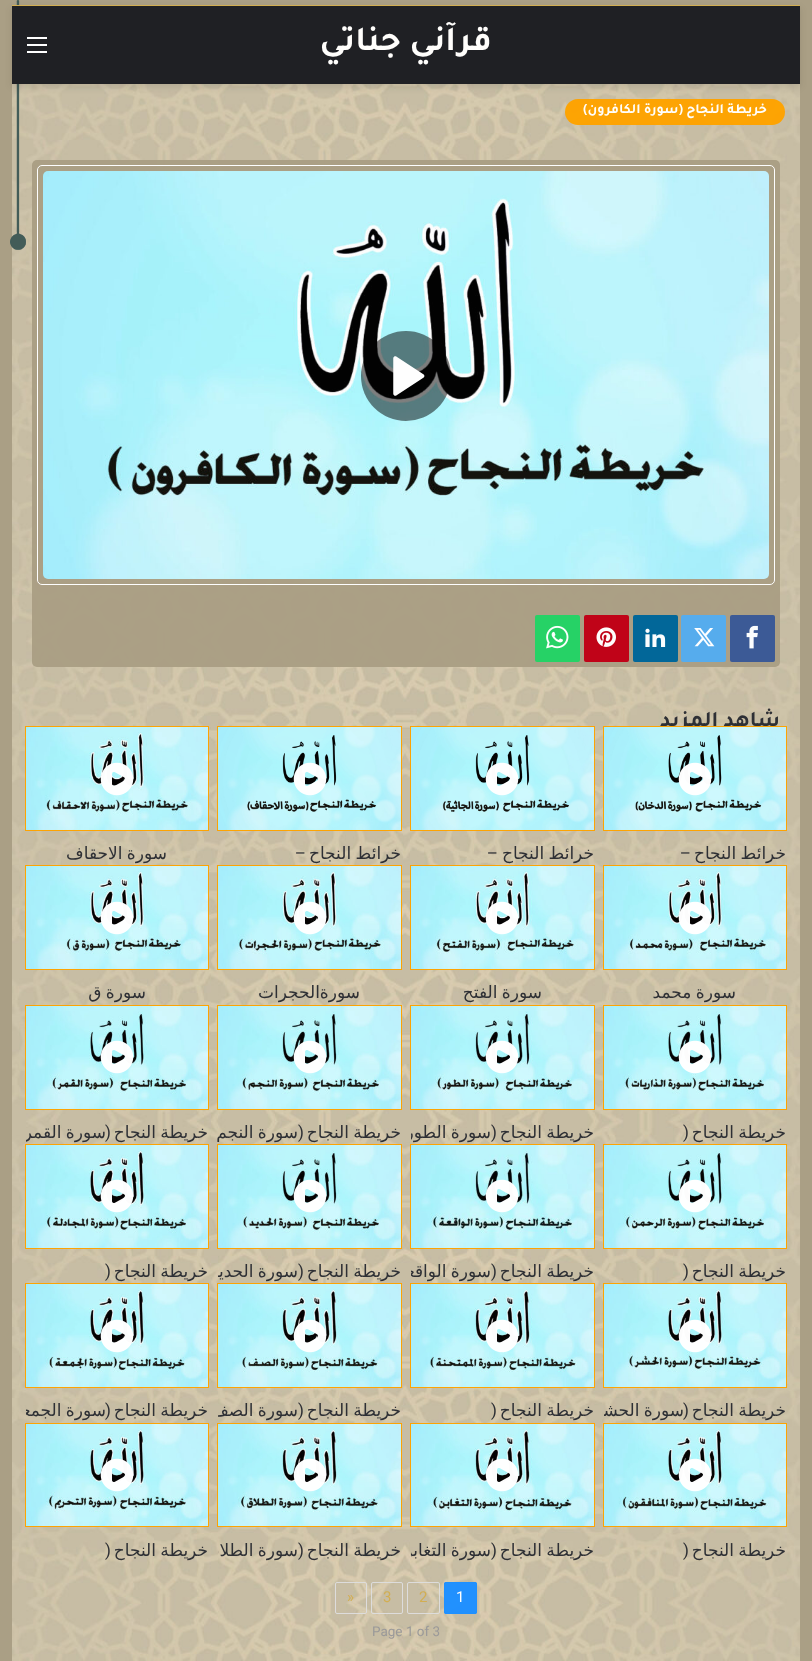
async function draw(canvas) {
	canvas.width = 812;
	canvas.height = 1661;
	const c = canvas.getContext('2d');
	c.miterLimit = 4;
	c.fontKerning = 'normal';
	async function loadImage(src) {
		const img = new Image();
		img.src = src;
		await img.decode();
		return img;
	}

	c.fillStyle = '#aa9f85';
	c.fillRect(0, 0, 812, 1661);
	c.drawImage(await loadImage('img1.png'), 12, 84, 788, 1577);
	c.drawImage(await loadImage('img2.png'), 10, 0, 16, 250);
	c.fillStyle = '#0000001a';
	c.filter = 'blur(3.5px)';
	c.beginPath();
	c.rect(12, 8, 788, 79);
	c.fill();
	c.filter = 'none';
	c.fillStyle = '#1f2024';
	c.fillRect(12, 6, 788, 78);
	c.fillStyle = '#d2ae51';
	c.fillRect(12, 5, 788, 1);
	c.direction = 'rtl';
	c.font = 'bold 35px Tajawal';
	c.fillStyle = '#fffefc';
	c.fillText('قرآني جناتي', 492, 50);
	for (const [x, y, w, h, color] of [
		[27, 44, 20, 2, '#fff'],
		[27, 37, 20, 2, '#fff'],
		[27, 51, 20, 2, '#fff'],
	]) {
		c.fillStyle = color;
		c.fillRect(x, y, w, h);
	}
	c.fillStyle = '#fda301fc';
	c.beginPath();
	c.roundRect(565, 99, 220, 26, 13);
	c.fill();
	c.font = 'bold 14px Tajawal';
	c.fillStyle = '#fffefc';
	c.fillText('خريطة النجاح (سورة الكافرون)', 767, 113);
	c.fillStyle = '#aa9f85fc';
	c.beginPath();
	c.roundRect(32, 160, 748, 507, 5);
	c.fill();
	c.beginPath();
	c.roundRect(37.5, 165.5, 737, 419, 4.5);
	c.strokeStyle = '#fefefe';
	c.stroke();
	c.drawImage(await loadImage('img3.png'), 43, 171, 726, 408);
	c.fillStyle = '#3c5a96';
	c.beginPath();
	c.roundRect(730, 615, 45, 47, 2);
	c.fill();
	c.drawImage(await loadImage('img4.png'), 746, 625, 12, 24);
	c.fillStyle = '#56aced';
	c.beginPath();
	c.roundRect(681, 615, 45, 47, 2);
	c.fill();
	c.drawImage(await loadImage('img5.png'), 694, 628, 21, 19);
	c.fillStyle = '#026799';
	c.beginPath();
	c.roundRect(633, 615, 45, 47, 2);
	c.fill();
	c.drawImage(await loadImage('img6.png'), 645, 628, 21, 19);
	c.fillStyle = '#c00318';
	c.beginPath();
	c.roundRect(584, 615, 45, 47, 2);
	c.fill();
	c.drawImage(await loadImage('img7.png'), 596, 627, 20, 20);
	c.fillStyle = '#26d266';
	c.beginPath();
	c.roundRect(535, 615, 45, 47, 2);
	c.fill();
	c.drawImage(await loadImage('img8.png'), 546, 625, 23, 24);
	c.font = 'bold 22px Tajawal';
	c.fillStyle = '#2e3035';
	c.fillText('شاهد المزيد', 780, 726);
	c.save();
	c.beginPath();
	c.moveTo(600, 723);
	c.lineTo(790, 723);
	c.lineTo(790, 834);
	c.lineTo(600, 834);
	c.closePath();
	c.moveTo(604, 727);
	c.lineTo(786, 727);
	c.lineTo(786, 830);
	c.lineTo(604, 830);
	c.closePath();
	c.clip('evenodd');
	c.fillStyle = '#fda301fc';
	c.filter = 'blur(0.5px)';
	c.beginPath();
	c.rect(603, 726, 184, 105);
	c.fill();
	c.filter = 'none';
	c.restore();
	c.drawImage(await loadImage('img9.png'), 604, 727, 182, 103);
	c.drawImage(await loadImage('img10.png'), 678, 762, 34, 34);
	c.wordSpacing = '-1px';
	c.font = '17px DejaVu Sans';
	c.fillText('خرائط النجاح', 786, 859);
	c.wordSpacing = '0px';
	c.font = '17px Roboto';
	c.fillText('–', 691, 859);
	c.save();
	c.beginPath();
	c.moveTo(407, 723);
	c.lineTo(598, 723);
	c.lineTo(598, 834);
	c.lineTo(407, 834);
	c.closePath();
	c.moveTo(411, 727);
	c.lineTo(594, 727);
	c.lineTo(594, 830);
	c.lineTo(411, 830);
	c.closePath();
	c.clip('evenodd');
	c.fillStyle = '#fda301fc';
	c.filter = 'blur(0.5px)';
	c.beginPath();
	c.rect(410, 726, 185, 105);
	c.fill();
	c.filter = 'none';
	c.restore();
	c.drawImage(await loadImage('img11.png'), 411, 727, 183, 103);
	c.drawImage(await loadImage('img12.png'), 485, 762, 34, 34);
	c.wordSpacing = '-1px';
	c.font = '17px DejaVu Sans';
	c.fillText('خرائط النجاح', 594, 859);
	c.wordSpacing = '0px';
	c.font = '17px Roboto';
	c.fillText('–', 498, 859);
	c.save();
	c.beginPath();
	c.moveTo(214, 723);
	c.lineTo(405, 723);
	c.lineTo(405, 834);
	c.lineTo(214, 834);
	c.closePath();
	c.moveTo(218, 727);
	c.lineTo(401, 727);
	c.lineTo(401, 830);
	c.lineTo(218, 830);
	c.closePath();
	c.clip('evenodd');
	c.fillStyle = '#fda301fc';
	c.filter = 'blur(0.5px)';
	c.beginPath();
	c.rect(217, 726, 185, 105);
	c.fill();
	c.filter = 'none';
	c.restore();
	c.drawImage(await loadImage('img13.png'), 218, 727, 183, 103);
	c.drawImage(await loadImage('img14.png'), 293, 762, 34, 34);
	c.wordSpacing = '-1px';
	c.font = '17px DejaVu Sans';
	c.fillText('خرائط النجاح', 401, 859);
	c.wordSpacing = '0px';
	c.font = '17px Roboto';
	c.fillText('–', 306, 859);
	c.save();
	c.beginPath();
	c.moveTo(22, 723);
	c.lineTo(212, 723);
	c.lineTo(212, 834);
	c.lineTo(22, 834);
	c.closePath();
	c.moveTo(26, 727);
	c.lineTo(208, 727);
	c.lineTo(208, 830);
	c.lineTo(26, 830);
	c.closePath();
	c.clip('evenodd');
	c.fillStyle = '#fda301fc';
	c.filter = 'blur(0.5px)';
	c.beginPath();
	c.rect(25, 726, 184, 105);
	c.fill();
	c.filter = 'none';
	c.restore();
	c.drawImage(await loadImage('img15.png'), 26, 727, 182, 103);
	c.drawImage(await loadImage('img16.png'), 100, 762, 34, 34);
	c.wordSpacing = '-1px';
	c.font = '17px DejaVu Sans';
	c.fillText('سورة الاحقاف', 167, 859);
	c.save();
	c.beginPath();
	c.moveTo(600, 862);
	c.lineTo(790, 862);
	c.lineTo(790, 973);
	c.lineTo(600, 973);
	c.closePath();
	c.moveTo(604, 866);
	c.lineTo(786, 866);
	c.lineTo(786, 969);
	c.lineTo(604, 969);
	c.closePath();
	c.clip('evenodd');
	c.fillStyle = '#fda301fc';
	c.filter = 'blur(0.5px)';
	c.beginPath();
	c.rect(603, 865, 184, 105);
	c.fill();
	c.filter = 'none';
	c.restore();
	c.drawImage(await loadImage('img17.png'), 604, 866, 182, 103);
	c.drawImage(await loadImage('img18.png'), 678, 901, 34, 34);
	c.fillText('سورة محمد', 736, 998);
	c.save();
	c.beginPath();
	c.moveTo(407, 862);
	c.lineTo(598, 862);
	c.lineTo(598, 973);
	c.lineTo(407, 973);
	c.closePath();
	c.moveTo(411, 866);
	c.lineTo(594, 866);
	c.lineTo(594, 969);
	c.lineTo(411, 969);
	c.closePath();
	c.clip('evenodd');
	c.fillStyle = '#fda301fc';
	c.filter = 'blur(0.5px)';
	c.beginPath();
	c.rect(410, 865, 185, 105);
	c.fill();
	c.filter = 'none';
	c.restore();
	c.drawImage(await loadImage('img19.png'), 411, 866, 183, 103);
	c.drawImage(await loadImage('img20.png'), 485, 901, 34, 34);
	c.fillText('سورة الفتح', 542, 998);
	c.save();
	c.beginPath();
	c.moveTo(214, 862);
	c.lineTo(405, 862);
	c.lineTo(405, 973);
	c.lineTo(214, 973);
	c.closePath();
	c.moveTo(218, 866);
	c.lineTo(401, 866);
	c.lineTo(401, 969);
	c.lineTo(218, 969);
	c.closePath();
	c.clip('evenodd');
	c.fillStyle = '#fda301fc';
	c.filter = 'blur(0.5px)';
	c.beginPath();
	c.rect(217, 865, 185, 105);
	c.fill();
	c.filter = 'none';
	c.restore();
	c.drawImage(await loadImage('img21.png'), 218, 866, 183, 103);
	c.drawImage(await loadImage('img22.png'), 293, 901, 34, 34);
	c.wordSpacing = '0px';
	c.fillText('سورةالحجرات', 360, 998);
	c.save();
	c.beginPath();
	c.moveTo(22, 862);
	c.lineTo(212, 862);
	c.lineTo(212, 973);
	c.lineTo(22, 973);
	c.closePath();
	c.moveTo(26, 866);
	c.lineTo(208, 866);
	c.lineTo(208, 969);
	c.lineTo(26, 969);
	c.closePath();
	c.clip('evenodd');
	c.fillStyle = '#fda301fc';
	c.filter = 'blur(0.5px)';
	c.beginPath();
	c.rect(25, 865, 184, 105);
	c.fill();
	c.filter = 'none';
	c.restore();
	c.drawImage(await loadImage('img23.png'), 26, 866, 182, 103);
	c.drawImage(await loadImage('img24.png'), 100, 901, 34, 34);
	c.wordSpacing = '-1px';
	c.fillText('سورة ق', 146, 998);
	c.save();
	c.beginPath();
	c.moveTo(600, 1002);
	c.lineTo(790, 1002);
	c.lineTo(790, 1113);
	c.lineTo(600, 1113);
	c.closePath();
	c.moveTo(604, 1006);
	c.lineTo(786, 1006);
	c.lineTo(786, 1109);
	c.lineTo(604, 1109);
	c.closePath();
	c.clip('evenodd');
	c.fillStyle = '#fda301fc';
	c.filter = 'blur(0.5px)';
	c.beginPath();
	c.rect(603, 1005, 184, 105);
	c.fill();
	c.filter = 'none';
	c.restore();
	c.drawImage(await loadImage('img25.png'), 604, 1006, 182, 103);
	c.drawImage(await loadImage('img26.png'), 678, 1040, 34, 34);
	c.fillText('خريطة النجاح', 786, 1138);
	c.wordSpacing = '0px';
	c.font = '17px Roboto';
	c.fillText('(', 689, 1138);
	c.save();
	c.beginPath();
	c.moveTo(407, 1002);
	c.lineTo(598, 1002);
	c.lineTo(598, 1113);
	c.lineTo(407, 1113);
	c.closePath();
	c.moveTo(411, 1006);
	c.lineTo(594, 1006);
	c.lineTo(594, 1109);
	c.lineTo(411, 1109);
	c.closePath();
	c.clip('evenodd');
	c.fillStyle = '#fda301fc';
	c.filter = 'blur(0.5px)';
	c.beginPath();
	c.rect(410, 1005, 185, 105);
	c.fill();
	c.filter = 'none';
	c.restore();
	c.drawImage(await loadImage('img27.png'), 411, 1006, 183, 103);
	c.drawImage(await loadImage('img28.png'), 485, 1040, 34, 34);
	c.wordSpacing = '-1px';
	c.font = '17px DejaVu Sans';
	c.fillText('خريطة النجاح', 594, 1138);
	c.wordSpacing = '0px';
	c.font = '17px Roboto';
	c.fillText('(', 497, 1138);
	c.save();
	c.beginPath();
	c.rect(411, 1120, 183, 25);
	c.clip();
	c.wordSpacing = '-1px';
	c.font = '17px DejaVu Sans';
	c.fillText('سورة الطور', 491, 1138);
	c.restore();
	c.save();
	c.beginPath();
	c.moveTo(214, 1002);
	c.lineTo(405, 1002);
	c.lineTo(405, 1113);
	c.lineTo(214, 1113);
	c.closePath();
	c.moveTo(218, 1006);
	c.lineTo(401, 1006);
	c.lineTo(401, 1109);
	c.lineTo(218, 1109);
	c.closePath();
	c.clip('evenodd');
	c.fillStyle = '#fda301fc';
	c.filter = 'blur(0.5px)';
	c.beginPath();
	c.rect(217, 1005, 185, 105);
	c.fill();
	c.filter = 'none';
	c.restore();
	c.drawImage(await loadImage('img29.png'), 218, 1006, 183, 103);
	c.drawImage(await loadImage('img30.png'), 293, 1040, 34, 34);
	c.wordSpacing = '-1px';
	c.font = '17px DejaVu Sans';
	c.fillText('خريطة النجاح', 401, 1138);
	c.wordSpacing = '0px';
	c.font = '17px Roboto';
	c.fillText('(', 304, 1138);
	c.wordSpacing = '-1px';
	c.font = '17px DejaVu Sans';
	c.fillText('سورة النجم', 298, 1138);
	c.save();
	c.beginPath();
	c.moveTo(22, 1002);
	c.lineTo(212, 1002);
	c.lineTo(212, 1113);
	c.lineTo(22, 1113);
	c.closePath();
	c.moveTo(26, 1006);
	c.lineTo(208, 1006);
	c.lineTo(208, 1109);
	c.lineTo(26, 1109);
	c.closePath();
	c.clip('evenodd');
	c.fillStyle = '#fda301fc';
	c.filter = 'blur(0.5px)';
	c.beginPath();
	c.rect(25, 1005, 184, 105);
	c.fill();
	c.filter = 'none';
	c.restore();
	c.drawImage(await loadImage('img31.png'), 26, 1006, 182, 103);
	c.drawImage(await loadImage('img32.png'), 100, 1040, 34, 34);
	c.fillText('خريطة النجاح', 208, 1138);
	c.wordSpacing = '0px';
	c.font = '17px Roboto';
	c.fillText('(', 111, 1138);
	c.save();
	c.beginPath();
	c.rect(26, 1120, 182, 25);
	c.clip();
	c.wordSpacing = '-1px';
	c.font = '17px DejaVu Sans';
	c.fillText('سورة القمر', 106, 1138);
	c.restore();
	c.save();
	c.beginPath();
	c.moveTo(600, 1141);
	c.lineTo(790, 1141);
	c.lineTo(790, 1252);
	c.lineTo(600, 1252);
	c.closePath();
	c.moveTo(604, 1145);
	c.lineTo(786, 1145);
	c.lineTo(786, 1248);
	c.lineTo(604, 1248);
	c.closePath();
	c.clip('evenodd');
	c.fillStyle = '#fda301fc';
	c.filter = 'blur(0.5px)';
	c.beginPath();
	c.rect(603, 1144, 184, 105);
	c.fill();
	c.filter = 'none';
	c.restore();
	c.drawImage(await loadImage('img33.png'), 604, 1145, 182, 103);
	c.drawImage(await loadImage('img32.png'), 678, 1179, 34, 34);
	c.wordSpacing = '-1px';
	c.font = '17px DejaVu Sans';
	c.fillText('خريطة النجاح', 786, 1277);
	c.wordSpacing = '0px';
	c.font = '17px Roboto';
	c.fillText('(', 689, 1277);
	c.save();
	c.beginPath();
	c.moveTo(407, 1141);
	c.lineTo(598, 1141);
	c.lineTo(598, 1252);
	c.lineTo(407, 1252);
	c.closePath();
	c.moveTo(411, 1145);
	c.lineTo(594, 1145);
	c.lineTo(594, 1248);
	c.lineTo(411, 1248);
	c.closePath();
	c.clip('evenodd');
	c.fillStyle = '#fda301fc';
	c.filter = 'blur(0.5px)';
	c.beginPath();
	c.rect(410, 1144, 185, 105);
	c.fill();
	c.filter = 'none';
	c.restore();
	c.drawImage(await loadImage('img34.png'), 411, 1145, 183, 103);
	c.drawImage(await loadImage('img35.png'), 485, 1179, 34, 34);
	c.wordSpacing = '-1px';
	c.font = '17px DejaVu Sans';
	c.fillText('خريطة النجاح', 594, 1277);
	c.wordSpacing = '0px';
	c.font = '17px Roboto';
	c.fillText('(', 497, 1277);
	c.save();
	c.beginPath();
	c.rect(411, 1259, 183, 25);
	c.clip();
	c.wordSpacing = '-1px';
	c.font = '17px DejaVu Sans';
	c.fillText('سورة الواقعة', 491, 1277);
	c.restore();
	c.save();
	c.beginPath();
	c.moveTo(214, 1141);
	c.lineTo(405, 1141);
	c.lineTo(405, 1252);
	c.lineTo(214, 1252);
	c.closePath();
	c.moveTo(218, 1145);
	c.lineTo(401, 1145);
	c.lineTo(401, 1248);
	c.lineTo(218, 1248);
	c.closePath();
	c.clip('evenodd');
	c.fillStyle = '#fda301fc';
	c.filter = 'blur(0.5px)';
	c.beginPath();
	c.rect(217, 1144, 185, 105);
	c.fill();
	c.filter = 'none';
	c.restore();
	c.drawImage(await loadImage('img36.png'), 218, 1145, 183, 103);
	c.drawImage(await loadImage('img30.png'), 293, 1179, 34, 34);
	c.wordSpacing = '-1px';
	c.font = '17px DejaVu Sans';
	c.fillText('خريطة النجاح', 401, 1277);
	c.wordSpacing = '0px';
	c.font = '17px Roboto';
	c.fillText('(', 304, 1277);
	c.save();
	c.beginPath();
	c.rect(218, 1259, 183, 25);
	c.clip();
	c.wordSpacing = '-1px';
	c.font = '17px DejaVu Sans';
	c.fillText('سورة الحديد', 298, 1277);
	c.restore();
	c.save();
	c.beginPath();
	c.moveTo(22, 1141);
	c.lineTo(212, 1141);
	c.lineTo(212, 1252);
	c.lineTo(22, 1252);
	c.closePath();
	c.moveTo(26, 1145);
	c.lineTo(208, 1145);
	c.lineTo(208, 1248);
	c.lineTo(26, 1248);
	c.closePath();
	c.clip('evenodd');
	c.fillStyle = '#fda301fc';
	c.filter = 'blur(0.5px)';
	c.beginPath();
	c.rect(25, 1144, 184, 105);
	c.fill();
	c.filter = 'none';
	c.restore();
	c.drawImage(await loadImage('img37.png'), 26, 1145, 182, 103);
	c.drawImage(await loadImage('img38.png'), 100, 1179, 34, 34);
	c.wordSpacing = '-1px';
	c.font = '17px DejaVu Sans';
	c.fillText('خريطة النجاح', 208, 1277);
	c.wordSpacing = '0px';
	c.font = '17px Roboto';
	c.fillText('(', 111, 1277);
	c.save();
	c.beginPath();
	c.moveTo(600, 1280);
	c.lineTo(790, 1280);
	c.lineTo(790, 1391);
	c.lineTo(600, 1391);
	c.closePath();
	c.moveTo(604, 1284);
	c.lineTo(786, 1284);
	c.lineTo(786, 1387);
	c.lineTo(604, 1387);
	c.closePath();
	c.clip('evenodd');
	c.fillStyle = '#fda301fc';
	c.filter = 'blur(0.5px)';
	c.beginPath();
	c.rect(603, 1283, 184, 105);
	c.fill();
	c.filter = 'none';
	c.restore();
	c.drawImage(await loadImage('img39.png'), 604, 1284, 182, 103);
	c.drawImage(await loadImage('img40.png'), 678, 1319, 34, 34);
	c.wordSpacing = '-1px';
	c.font = '17px DejaVu Sans';
	c.fillText('خريطة النجاح', 786, 1416);
	c.wordSpacing = '0px';
	c.font = '17px Roboto';
	c.fillText('(', 689, 1416);
	c.save();
	c.beginPath();
	c.rect(604, 1398, 182, 26);
	c.clip();
	c.wordSpacing = '-1px';
	c.font = '17px DejaVu Sans';
	c.fillText('سورة الحشر', 684, 1416);
	c.restore();
	c.save();
	c.beginPath();
	c.moveTo(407, 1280);
	c.lineTo(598, 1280);
	c.lineTo(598, 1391);
	c.lineTo(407, 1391);
	c.closePath();
	c.moveTo(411, 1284);
	c.lineTo(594, 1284);
	c.lineTo(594, 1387);
	c.lineTo(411, 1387);
	c.closePath();
	c.clip('evenodd');
	c.fillStyle = '#fda301fc';
	c.filter = 'blur(0.5px)';
	c.beginPath();
	c.rect(410, 1283, 185, 105);
	c.fill();
	c.filter = 'none';
	c.restore();
	c.drawImage(await loadImage('img41.png'), 411, 1284, 183, 103);
	c.drawImage(await loadImage('img42.png'), 485, 1319, 34, 34);
	c.wordSpacing = '-1px';
	c.font = '17px DejaVu Sans';
	c.fillText('خريطة النجاح', 594, 1416);
	c.wordSpacing = '0px';
	c.font = '17px Roboto';
	c.fillText('(', 497, 1416);
	c.save();
	c.beginPath();
	c.moveTo(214, 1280);
	c.lineTo(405, 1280);
	c.lineTo(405, 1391);
	c.lineTo(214, 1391);
	c.closePath();
	c.moveTo(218, 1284);
	c.lineTo(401, 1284);
	c.lineTo(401, 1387);
	c.lineTo(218, 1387);
	c.closePath();
	c.clip('evenodd');
	c.fillStyle = '#fda301fc';
	c.filter = 'blur(0.5px)';
	c.beginPath();
	c.rect(217, 1283, 185, 105);
	c.fill();
	c.filter = 'none';
	c.restore();
	c.drawImage(await loadImage('img43.png'), 218, 1284, 183, 103);
	c.drawImage(await loadImage('img44.png'), 293, 1319, 34, 34);
	c.wordSpacing = '-1px';
	c.font = '17px DejaVu Sans';
	c.fillText('خريطة النجاح', 401, 1416);
	c.wordSpacing = '0px';
	c.font = '17px Roboto';
	c.fillText('(', 304, 1416);
	c.save();
	c.beginPath();
	c.rect(218, 1398, 183, 26);
	c.clip();
	c.wordSpacing = '-1px';
	c.font = '17px DejaVu Sans';
	c.fillText('سورة الصف', 298, 1416);
	c.restore();
	c.save();
	c.beginPath();
	c.moveTo(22, 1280);
	c.lineTo(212, 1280);
	c.lineTo(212, 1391);
	c.lineTo(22, 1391);
	c.closePath();
	c.moveTo(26, 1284);
	c.lineTo(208, 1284);
	c.lineTo(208, 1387);
	c.lineTo(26, 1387);
	c.closePath();
	c.clip('evenodd');
	c.fillStyle = '#fda301fc';
	c.filter = 'blur(0.5px)';
	c.beginPath();
	c.rect(25, 1283, 184, 105);
	c.fill();
	c.filter = 'none';
	c.restore();
	c.drawImage(await loadImage('img45.png'), 26, 1284, 182, 103);
	c.drawImage(await loadImage('img46.png'), 100, 1319, 34, 34);
	c.wordSpacing = '-1px';
	c.font = '17px DejaVu Sans';
	c.fillText('خريطة النجاح', 208, 1416);
	c.wordSpacing = '0px';
	c.font = '17px Roboto';
	c.fillText('(', 111, 1416);
	c.save();
	c.beginPath();
	c.rect(26, 1398, 182, 26);
	c.clip();
	c.wordSpacing = '-1px';
	c.font = '17px DejaVu Sans';
	c.fillText('سورة الجمعة', 106, 1416);
	c.restore();
	c.save();
	c.beginPath();
	c.moveTo(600, 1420);
	c.lineTo(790, 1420);
	c.lineTo(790, 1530);
	c.lineTo(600, 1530);
	c.closePath();
	c.moveTo(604, 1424);
	c.lineTo(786, 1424);
	c.lineTo(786, 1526);
	c.lineTo(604, 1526);
	c.closePath();
	c.clip('evenodd');
	c.fillStyle = '#fda301fc';
	c.filter = 'blur(0.5px)';
	c.beginPath();
	c.rect(603, 1423, 184, 104);
	c.fill();
	c.filter = 'none';
	c.restore();
	c.drawImage(await loadImage('img47.png'), 604, 1424, 182, 102);
	c.drawImage(await loadImage('img38.png'), 678, 1458, 34, 34);
	c.wordSpacing = '-1px';
	c.font = '17px DejaVu Sans';
	c.fillText('خريطة النجاح', 786, 1556);
	c.wordSpacing = '0px';
	c.font = '17px Roboto';
	c.fillText('(', 689, 1556);
	c.save();
	c.beginPath();
	c.moveTo(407, 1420);
	c.lineTo(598, 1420);
	c.lineTo(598, 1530);
	c.lineTo(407, 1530);
	c.closePath();
	c.moveTo(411, 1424);
	c.lineTo(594, 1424);
	c.lineTo(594, 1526);
	c.lineTo(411, 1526);
	c.closePath();
	c.clip('evenodd');
	c.fillStyle = '#fda301fc';
	c.filter = 'blur(0.5px)';
	c.beginPath();
	c.rect(410, 1423, 185, 104);
	c.fill();
	c.filter = 'none';
	c.restore();
	c.drawImage(await loadImage('img48.png'), 411, 1424, 183, 102);
	c.drawImage(await loadImage('img49.png'), 485, 1458, 34, 34);
	c.wordSpacing = '-1px';
	c.font = '17px DejaVu Sans';
	c.fillText('خريطة النجاح', 594, 1556);
	c.wordSpacing = '0px';
	c.font = '17px Roboto';
	c.fillText('(', 497, 1556);
	c.save();
	c.beginPath();
	c.rect(411, 1538, 183, 25);
	c.clip();
	c.wordSpacing = '-1px';
	c.font = '17px DejaVu Sans';
	c.fillText('سورة التغابن', 491, 1556);
	c.restore();
	c.save();
	c.beginPath();
	c.moveTo(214, 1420);
	c.lineTo(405, 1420);
	c.lineTo(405, 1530);
	c.lineTo(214, 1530);
	c.closePath();
	c.moveTo(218, 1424);
	c.lineTo(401, 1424);
	c.lineTo(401, 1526);
	c.lineTo(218, 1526);
	c.closePath();
	c.clip('evenodd');
	c.fillStyle = '#fda301fc';
	c.filter = 'blur(0.5px)';
	c.beginPath();
	c.rect(217, 1423, 185, 104);
	c.fill();
	c.filter = 'none';
	c.restore();
	c.drawImage(await loadImage('img50.png'), 218, 1424, 183, 102);
	c.drawImage(await loadImage('img51.png'), 293, 1458, 34, 34);
	c.wordSpacing = '-1px';
	c.font = '17px DejaVu Sans';
	c.fillText('خريطة النجاح', 401, 1556);
	c.wordSpacing = '0px';
	c.font = '17px Roboto';
	c.fillText('(', 304, 1556);
	c.save();
	c.beginPath();
	c.rect(218, 1538, 183, 25);
	c.clip();
	c.wordSpacing = '-1px';
	c.font = '17px DejaVu Sans';
	c.fillText('سورة الطلاق', 298, 1556);
	c.restore();
	c.save();
	c.beginPath();
	c.moveTo(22, 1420);
	c.lineTo(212, 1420);
	c.lineTo(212, 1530);
	c.lineTo(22, 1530);
	c.closePath();
	c.moveTo(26, 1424);
	c.lineTo(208, 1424);
	c.lineTo(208, 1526);
	c.lineTo(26, 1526);
	c.closePath();
	c.clip('evenodd');
	c.fillStyle = '#fda301fc';
	c.filter = 'blur(0.5px)';
	c.beginPath();
	c.rect(25, 1423, 184, 104);
	c.fill();
	c.filter = 'none';
	c.restore();
	c.drawImage(await loadImage('img52.png'), 26, 1424, 182, 102);
	c.drawImage(await loadImage('img38.png'), 100, 1458, 34, 34);
	c.wordSpacing = '-1px';
	c.font = '17px DejaVu Sans';
	c.fillText('خريطة النجاح', 208, 1556);
	c.wordSpacing = '0px';
	c.font = '17px Roboto';
	c.fillText('(', 111, 1556);
	c.fillStyle = '#1e90fffc';
	c.beginPath();
	c.roundRect(444, 1582, 33, 32, 2);
	c.fill();
	c.beginPath();
	c.roundRect(444.5, 1582.5, 32, 31, 1.5);
	c.strokeStyle = '#1e90fffc';
	c.stroke();
	c.direction = 'ltr';
	c.font = '15px Roboto';
	c.fillStyle = '#fffefc';
	c.fillText('1', 456, 1602);
	c.beginPath();
	c.roundRect(407.5, 1582.5, 32, 31, 1.5);
	c.strokeStyle = '#ddddddfc';
	c.stroke();
	c.fillStyle = '#d2ae52';
	c.fillText('2', 419, 1602);
	c.beginPath();
	c.roundRect(371.5, 1582.5, 31, 31, 1.5);
	c.stroke();
	c.fillText('3', 383, 1602);
	c.beginPath();
	c.roundRect(335.5, 1582.5, 31, 31, 1.5);
	c.stroke();
	c.fillText('»', 347, 1602);
	c.font = '13.5px Roboto';
	c.fillStyle = '#9a9999';
	c.fillText('Page 1 of 3', 372, 1636);
}

draw(document.querySelector('canvas'));
